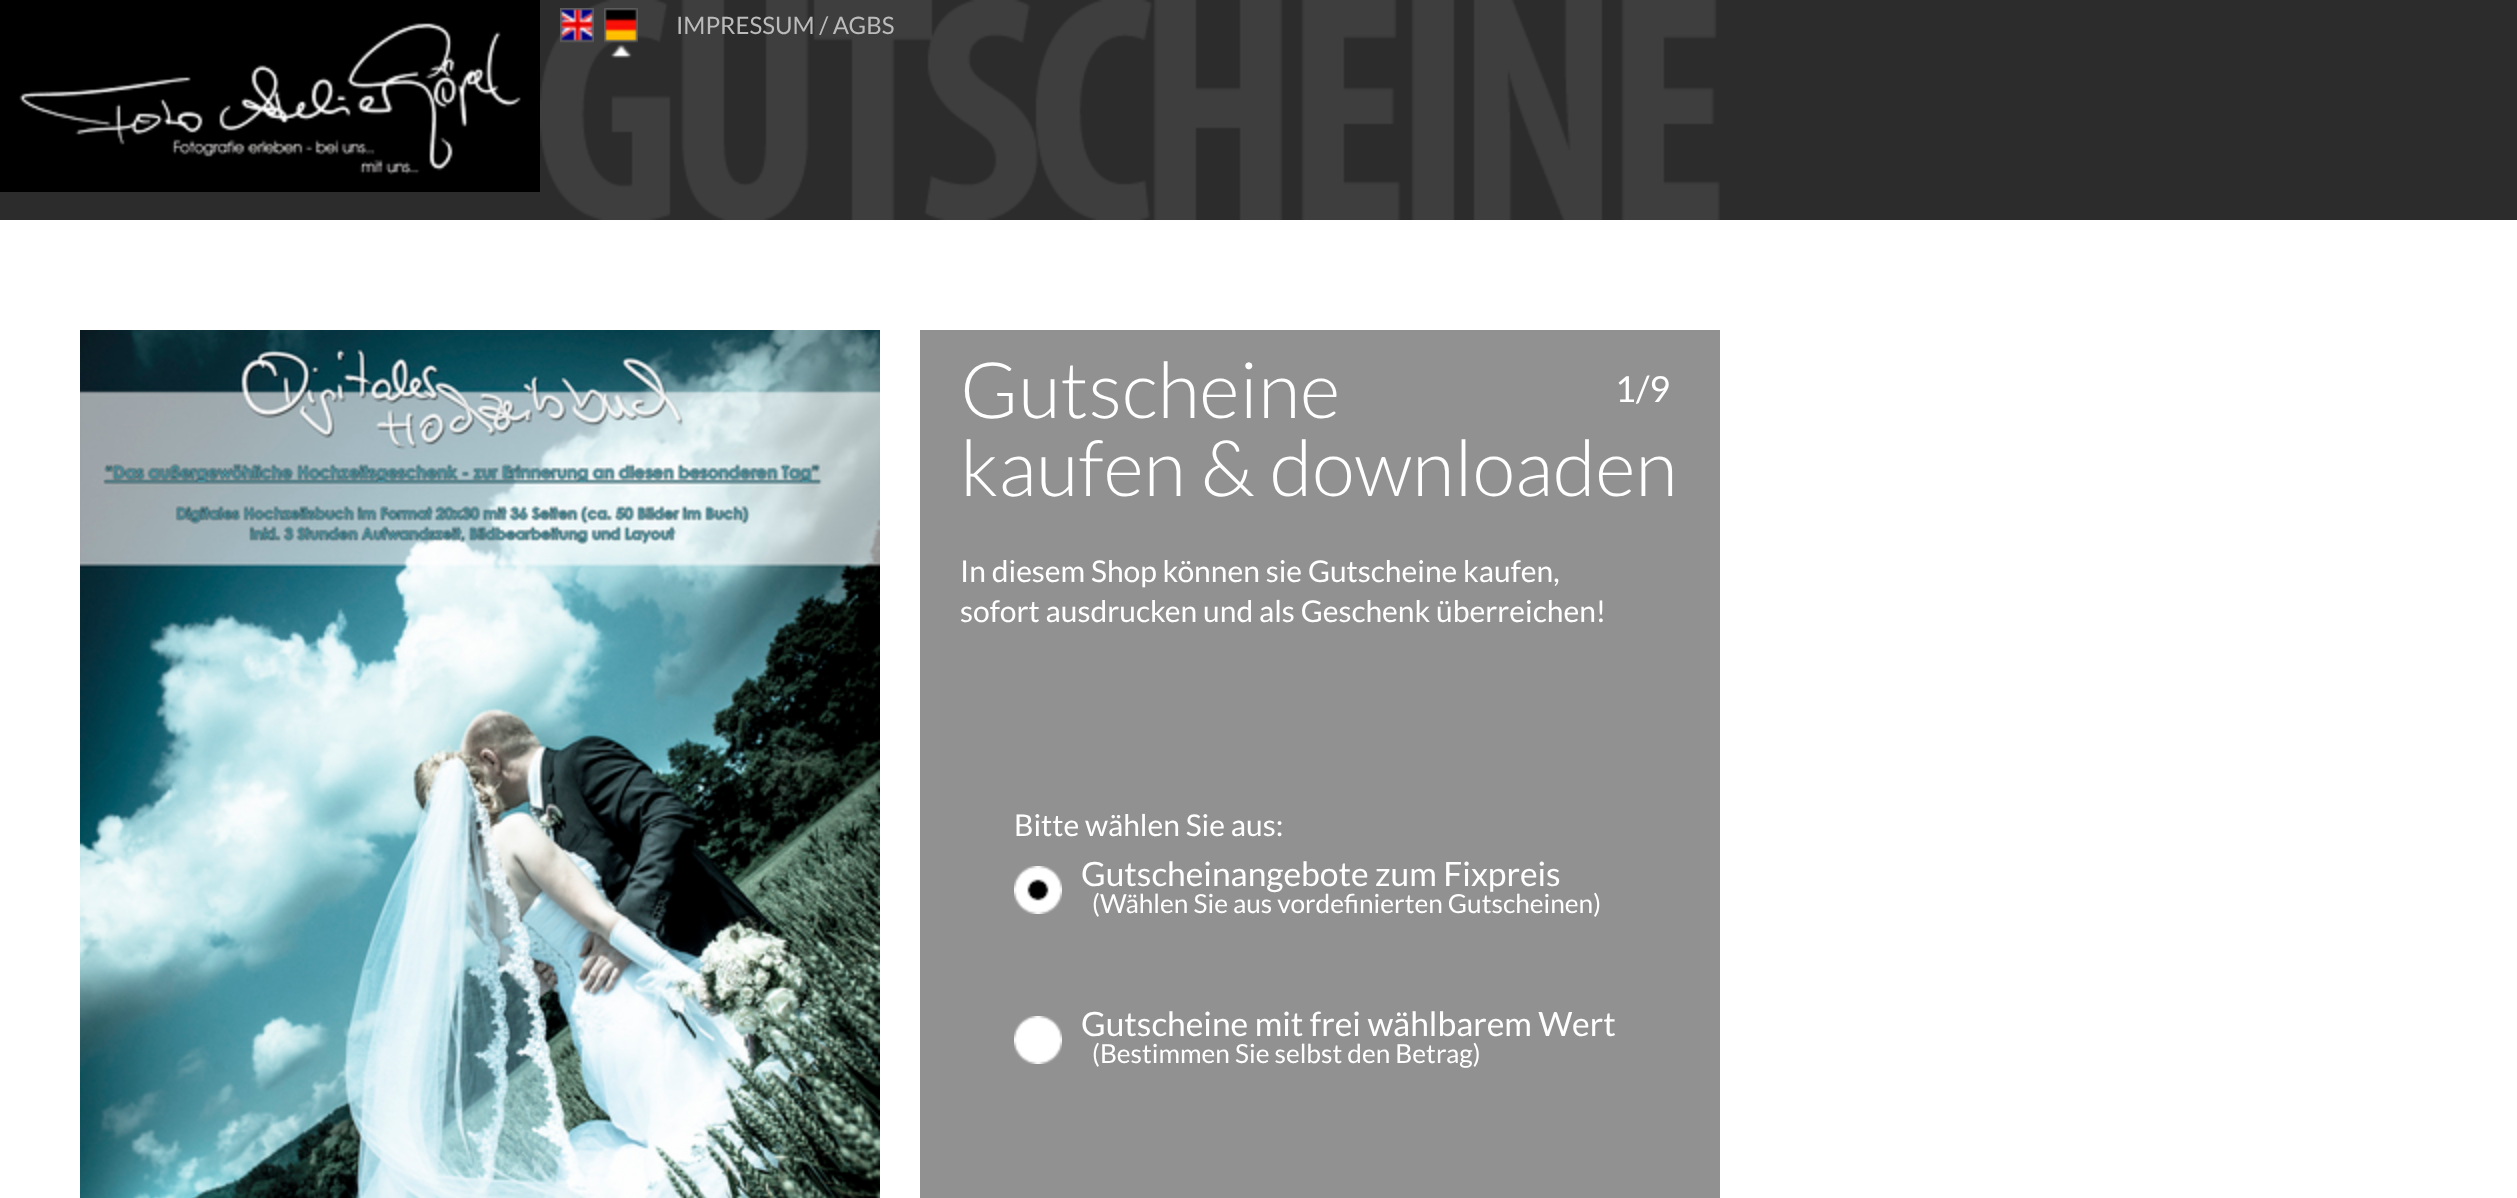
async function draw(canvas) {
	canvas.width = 2517;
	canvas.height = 1198;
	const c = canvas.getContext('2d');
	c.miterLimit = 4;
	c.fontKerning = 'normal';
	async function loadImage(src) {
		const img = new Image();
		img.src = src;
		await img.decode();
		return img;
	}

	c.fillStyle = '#fff';
	c.fillRect(0, 0, 2517, 1198);
	c.fillStyle = '#2c2c2c';
	c.fillRect(0, 0, 2517, 220);
	c.drawImage(await loadImage('img1.png'), 0, 0, 540, 192);
	c.drawImage(await loadImage('img2.png'), 540, 0, 1180, 220);
	c.drawImage(await loadImage('img3.png'), 560, 8, 34, 35);
	c.drawImage(await loadImage('img4.png'), 604, 8, 34, 50);
	c.font = '24px Lato';
	c.fillStyle = '#bbb';
	c.fillText('IMPRESSUM / AGBS', 676, 34);
	c.drawImage(await loadImage('img5.png'), 80, 330, 800, 868);
	c.fillStyle = '#919191';
	c.fillRect(920, 330, 800, 868);
	c.font = '300 78px Lato';
	c.fillStyle = '#fff';
	c.fillText('Gutscheine', 960, 418);
	c.font = '36px Lato';
	c.fillText('1/9', 1615, 402);
	c.font = '300 78px Lato';
	c.fillText('kaufen & downloaden', 960, 496);
	c.font = '30px Lato';
	for (const [text, x, y] of [
		['In diesem Shop können sie Gutscheine kaufen,', 960, 582],
		['sofort ausdrucken und als Geschenk überreichen!', 960, 622],
		['Bitte wählen Sie aus:', 1014, 836],
	]) {
		c.fillText(text, x, y);
	}
	c.drawImage(await loadImage('img6.png'), 1014, 866, 48, 48);
	c.font = '33.6px Lato';
	c.fillText('Gutscheinangebote zum Fixpreis', 1081, 886);
	c.font = '26.25px Lato';
	c.fillText('(Wählen Sie aus vordefinierten Gutscheinen)', 1092, 913);
	c.drawImage(await loadImage('img7.png'), 1014, 1016, 48, 48);
	c.font = '33.6px Lato';
	c.fillText('Gutscheine mit frei wählbarem Wert', 1081, 1036);
	c.font = '26.25px Lato';
	c.fillText('(Bestimmen Sie selbst den Betrag)', 1092, 1063);
}

draw(document.querySelector('canvas'));
